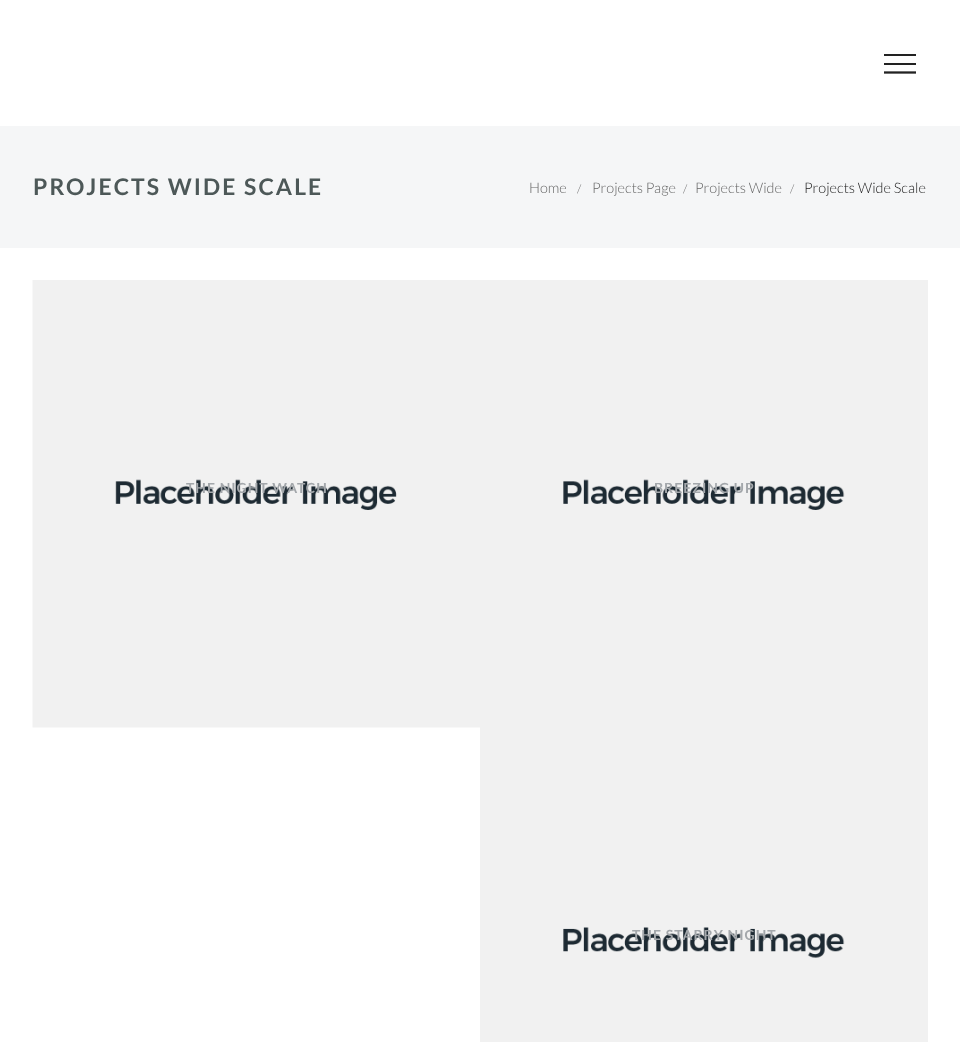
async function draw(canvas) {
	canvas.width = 960;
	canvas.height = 1042;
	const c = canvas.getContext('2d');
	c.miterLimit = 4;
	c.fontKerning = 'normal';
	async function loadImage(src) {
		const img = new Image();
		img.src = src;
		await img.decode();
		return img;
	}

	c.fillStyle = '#fff';
	c.fillRect(0, 0, 960, 1042);
	c.fillStyle = '#222';
	c.fillRect(884, 54, 32, 2);
	c.beginPath();
	c.moveTo(884, 72.5);
	c.lineTo(916, 72.5);
	c.strokeStyle = '#222';
	c.lineWidth = 2.3;
	c.stroke();
	c.fillRect(884, 63, 32, 2);
	c.fillStyle = '#f5f6f7';
	c.fillRect(0, 126, 960, 122);
	c.letterSpacing = '2.1px';
	c.font = 'bold 22.9px Lato';
	c.fillStyle = '#4d5858';
	c.fillText('PROJECTS WIDE SCALE', 33, 195);
	c.letterSpacing = '0px';
	c.font = '300 14.5px Lato';
	c.fillStyle = '#666';
	c.fillText('Home', 529, 193);
	c.font = '300 12px Lato';
	c.fillText('/', 577, 193);
	c.font = '300 14.5px Lato';
	c.fillText('Projects Page', 592, 193);
	c.font = '300 12px Lato';
	c.fillText('/', 683, 193);
	c.font = '300 14.5px Lato';
	c.fillText('Projects Wide', 695, 193);
	c.font = '300 12px Lato';
	c.fillText('/', 790, 193);
	c.font = '300 14.5px Lato';
	c.fillStyle = '#222';
	c.fillText('Projects Wide Scale', 804, 193);
	c.drawImage(await loadImage('img1.png'), 32, 280, 448, 448);
	c.letterSpacing = '1px';
	c.font = 'bold 14px Lato';
	c.fillStyle = '#a3a7ab';
	c.fillText('THE NIGHT WATCH', 186, 493);
	c.drawImage(await loadImage('img2.png'), 480, 280, 448, 448);
	c.fillText('BREEZING UP', 654, 493);
	c.drawImage(await loadImage('img3.png'), 480, 728, 448, 314);
	c.fillText('THE STARRY NIGHT', 632, 940);
}

draw(document.querySelector('canvas'));
